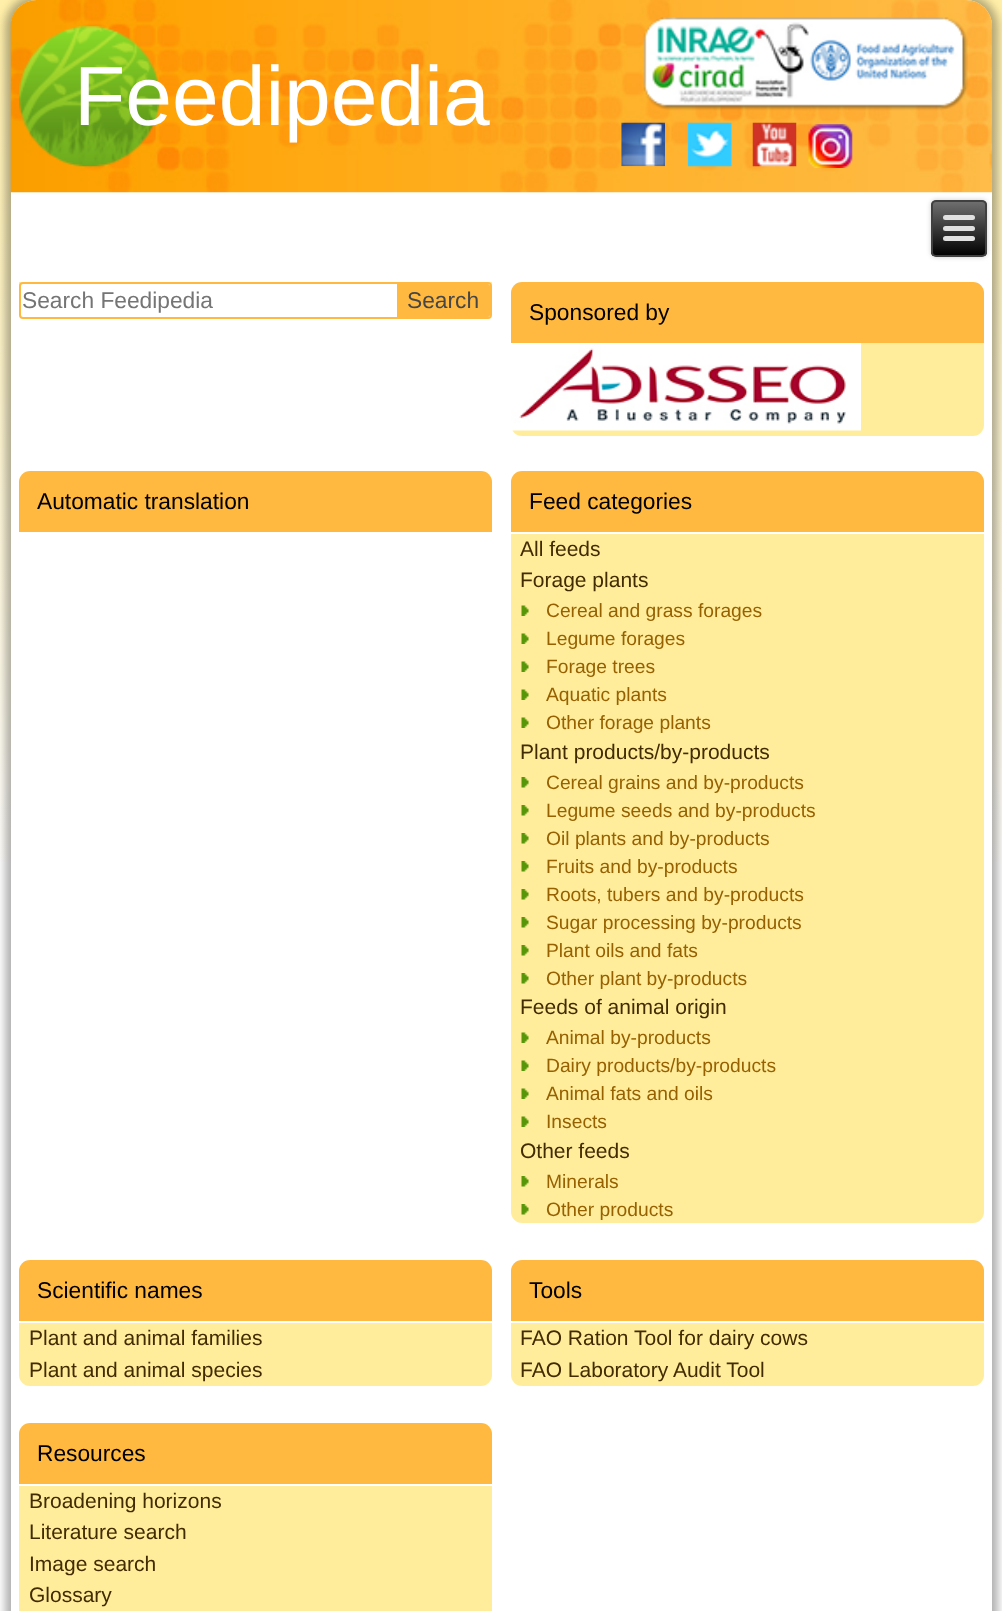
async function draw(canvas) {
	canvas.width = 1002;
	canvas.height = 1611;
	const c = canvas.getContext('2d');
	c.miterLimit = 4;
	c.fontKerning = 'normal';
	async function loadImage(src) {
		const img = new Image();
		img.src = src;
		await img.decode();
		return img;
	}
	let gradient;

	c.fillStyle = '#fff';
	c.fillRect(0, 0, 1002, 1611);
	gradient = c.createLinearGradient(501, 0, 501, 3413);
	gradient.addColorStop(0, '#ffefa8');
	gradient.addColorStop(0.26, '#fff');
	c.fillStyle = gradient;
	c.fillRect(0, 0, 1002, 862);
	c.fillStyle = '#0000004d';
	c.filter = 'blur(4.5px)';
	c.beginPath();
	c.roundRect(5, -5, 993, 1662, 32);
	c.fill();
	c.filter = 'none';
	c.fillStyle = '#fff';
	c.beginPath();
	c.roundRect(11, 0, 981, 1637, 26);
	c.fill();
	c.drawImage(await loadImage('img1.png'), 10, 0, 983, 193);
	c.font = '84px Liberation Sans';
	c.fillText('Feedipedia', 74, 125);
	c.drawImage(await loadImage('img2.png'), 621, 122, 44, 45);
	c.drawImage(await loadImage('img3.png'), 687, 122, 45, 45);
	c.drawImage(await loadImage('img4.png'), 752, 122, 45, 45);
	c.drawImage(await loadImage('img5.png'), 808, 124, 45, 44);
	c.fillStyle = '#00000033';
	c.filter = 'blur(2.5px)';
	c.beginPath();
	c.roundRect(931, 200, 56, 57, 5);
	c.fill();
	c.filter = 'none';
	c.save();
	c.beginPath();
	c.roundRect(931, 200, 56, 57, 5);
	c.clip();
	gradient = c.createLinearGradient(959, 201, 959, 256);
	gradient.addColorStop(0, '#707070');
	gradient.addColorStop(1, '#000');
	c.fillStyle = gradient;
	c.fillRect(931, 201, 56, 55);
	c.restore();
	c.beginPath();
	c.roundRect(932, 201, 54, 55, 4);
	c.strokeStyle = '#404040';
	c.lineWidth = 2;
	c.stroke();
	c.fillStyle = '#e0e0e0';
	c.beginPath();
	c.roundRect(943, 215, 32, 5, 2.5);
	c.fill();
	c.beginPath();
	c.roundRect(943, 226, 32, 5, 2.5);
	c.fill();
	c.beginPath();
	c.roundRect(943, 236, 32, 5, 2.5);
	c.fill();
	c.fillStyle = '#ffed9b';
	c.beginPath();
	c.roundRect(19, 282, 473, 37, [0, 0, 11, 11]);
	c.fill();
	c.fillStyle = '#fff';
	c.beginPath();
	c.roundRect(20, 283, 471, 35, 3);
	c.fill();
	c.strokeStyle = '#ffb941';
	c.stroke();
	c.font = '22.75px Liberation Sans';
	c.fillStyle = '#757575';
	c.fillText('Search Feedipedia', 22, 308);
	c.fillStyle = '#ffb941';
	c.beginPath();
	c.roundRect(397, 284, 93, 33, [0, 2, 2, 0]);
	c.fill();
	c.fillStyle = '#464646';
	c.fillText('Search', 407, 308);
	c.fillStyle = '#ffb941';
	c.beginPath();
	c.roundRect(511, 282, 473, 61, [11, 11, 0, 0]);
	c.fill();
	c.fillStyle = '#000';
	c.fillText('Sponsored by', 529, 320);
	c.fillStyle = '#ffed9b';
	c.beginPath();
	c.roundRect(511, 343, 473, 93, [0, 0, 11, 11]);
	c.fill();
	c.drawImage(await loadImage('img6.png'), 511, 343, 350, 88);
	c.fillStyle = '#ffb941';
	c.beginPath();
	c.roundRect(19, 471, 473, 61, [11, 11, 0, 0]);
	c.fill();
	c.fillStyle = '#000';
	c.fillText('Automatic translation', 37, 509);
	c.fillStyle = '#ffb941';
	c.beginPath();
	c.roundRect(511, 471, 473, 61, [11, 11, 0, 0]);
	c.fill();
	c.fillStyle = '#000';
	c.fillText('Feed categories', 529, 509);
	c.fillStyle = '#ffed9b';
	c.beginPath();
	c.roundRect(511, 534, 473, 689, [0, 0, 11, 11]);
	c.fill();
	c.font = '21px Liberation Sans';
	c.fillStyle = '#432b00';
	c.fillText('All feeds', 520, 556);
	c.fillText('Forage plants', 520, 587);
	c.drawImage(await loadImage('img7.png'), 521, 605, 8, 11);
	c.font = '19.25px Liberation Sans';
	c.fillStyle = '#976000';
	c.fillText('Cereal and grass forages', 546, 617);
	c.drawImage(await loadImage('img7.png'), 521, 633, 8, 11);
	c.fillText('Legume forages', 546, 645);
	c.drawImage(await loadImage('img7.png'), 521, 661, 8, 11);
	c.fillText('Forage trees', 546, 673);
	c.drawImage(await loadImage('img7.png'), 521, 689, 8, 11);
	c.fillText('Aquatic plants', 546, 701);
	c.drawImage(await loadImage('img7.png'), 521, 717, 8, 11);
	c.fillText('Other forage plants', 546, 729);
	c.font = '21px Liberation Sans';
	c.fillStyle = '#432b00';
	c.fillText('Plant products/by-products', 520, 759);
	c.drawImage(await loadImage('img8.png'), 521, 777, 8, 11);
	c.font = '19.25px Liberation Sans';
	c.fillStyle = '#976000';
	c.fillText('Cereal grains and by-products', 546, 789);
	c.drawImage(await loadImage('img8.png'), 521, 805, 8, 11);
	c.fillText('Legume seeds and by-products', 546, 817);
	c.drawImage(await loadImage('img8.png'), 521, 833, 8, 11);
	c.fillText('Oil plants and by-products', 546, 845);
	c.drawImage(await loadImage('img8.png'), 521, 861, 8, 11);
	c.fillText('Fruits and by-products', 546, 873);
	c.drawImage(await loadImage('img8.png'), 521, 889, 8, 11);
	c.fillText('Roots, tubers and by-products', 546, 901);
	c.drawImage(await loadImage('img8.png'), 521, 917, 8, 11);
	c.fillText('Sugar processing by-products', 546, 929);
	c.drawImage(await loadImage('img8.png'), 521, 945, 8, 11);
	c.fillText('Plant oils and fats', 546, 957);
	c.drawImage(await loadImage('img8.png'), 521, 973, 8, 11);
	c.fillText('Other plant by-products', 546, 985);
	c.font = '21px Liberation Sans';
	c.fillStyle = '#432b00';
	c.fillText('Feeds of animal origin', 520, 1014);
	c.drawImage(await loadImage('img7.png'), 521, 1032, 8, 11);
	c.font = '19.25px Liberation Sans';
	c.fillStyle = '#976000';
	c.fillText('Animal by-products', 546, 1044);
	c.drawImage(await loadImage('img7.png'), 521, 1060, 8, 11);
	c.fillText('Dairy products/by-products', 546, 1072);
	c.drawImage(await loadImage('img7.png'), 521, 1088, 8, 11);
	c.fillText('Animal fats and oils', 546, 1100);
	c.drawImage(await loadImage('img7.png'), 521, 1116, 8, 11);
	c.fillText('Insects', 546, 1128);
	c.font = '21px Liberation Sans';
	c.fillStyle = '#432b00';
	c.fillText('Other feeds', 520, 1158);
	c.drawImage(await loadImage('img8.png'), 521, 1176, 8, 11);
	c.font = '19.25px Liberation Sans';
	c.fillStyle = '#976000';
	c.fillText('Minerals', 546, 1188);
	c.drawImage(await loadImage('img8.png'), 521, 1204, 8, 11);
	c.fillText('Other products', 546, 1216);
	c.fillStyle = '#ffb941';
	c.beginPath();
	c.roundRect(19, 1260, 473, 61, [11, 11, 0, 0]);
	c.fill();
	c.font = '22.75px Liberation Sans';
	c.fillStyle = '#000';
	c.fillText('Scientific names', 37, 1298);
	c.fillStyle = '#ffed9b';
	c.beginPath();
	c.roundRect(19, 1323, 473, 63, [0, 0, 11, 11]);
	c.fill();
	c.font = '21px Liberation Sans';
	c.fillStyle = '#432b00';
	c.fillText('Plant and animal families', 29, 1345);
	c.fillText('Plant and animal species', 29, 1377);
	c.fillStyle = '#ffb941';
	c.beginPath();
	c.roundRect(511, 1260, 473, 61, [11, 11, 0, 0]);
	c.fill();
	c.font = '22.75px Liberation Sans';
	c.fillStyle = '#000';
	c.fillText('Tools', 529, 1298);
	c.fillStyle = '#ffed9b';
	c.beginPath();
	c.roundRect(511, 1323, 473, 63, [0, 0, 11, 11]);
	c.fill();
	c.font = '21px Liberation Sans';
	c.fillStyle = '#432b00';
	c.fillText('FAO Ration Tool for dairy cows', 520, 1345);
	c.fillText('FAO Laboratory Audit Tool', 520, 1377);
	c.fillStyle = '#ffb941';
	c.beginPath();
	c.roundRect(19, 1423, 473, 61, [11, 11, 0, 0]);
	c.fill();
	c.font = '22.75px Liberation Sans';
	c.fillStyle = '#000';
	c.fillText('Resources', 37, 1461);
	c.fillStyle = '#ffed9b';
	c.fillRect(19, 1486, 473, 125);
	c.font = '21px Liberation Sans';
	c.fillStyle = '#432b00';
	for (const [text, x, y] of [
		['Broadening horizons', 29, 1508],
		['Literature search', 29, 1539],
		['Image search', 29, 1571],
		['Glossary', 29, 1602],
	]) {
		c.fillText(text, x, y);
	}
}

draw(document.querySelector('canvas'));
